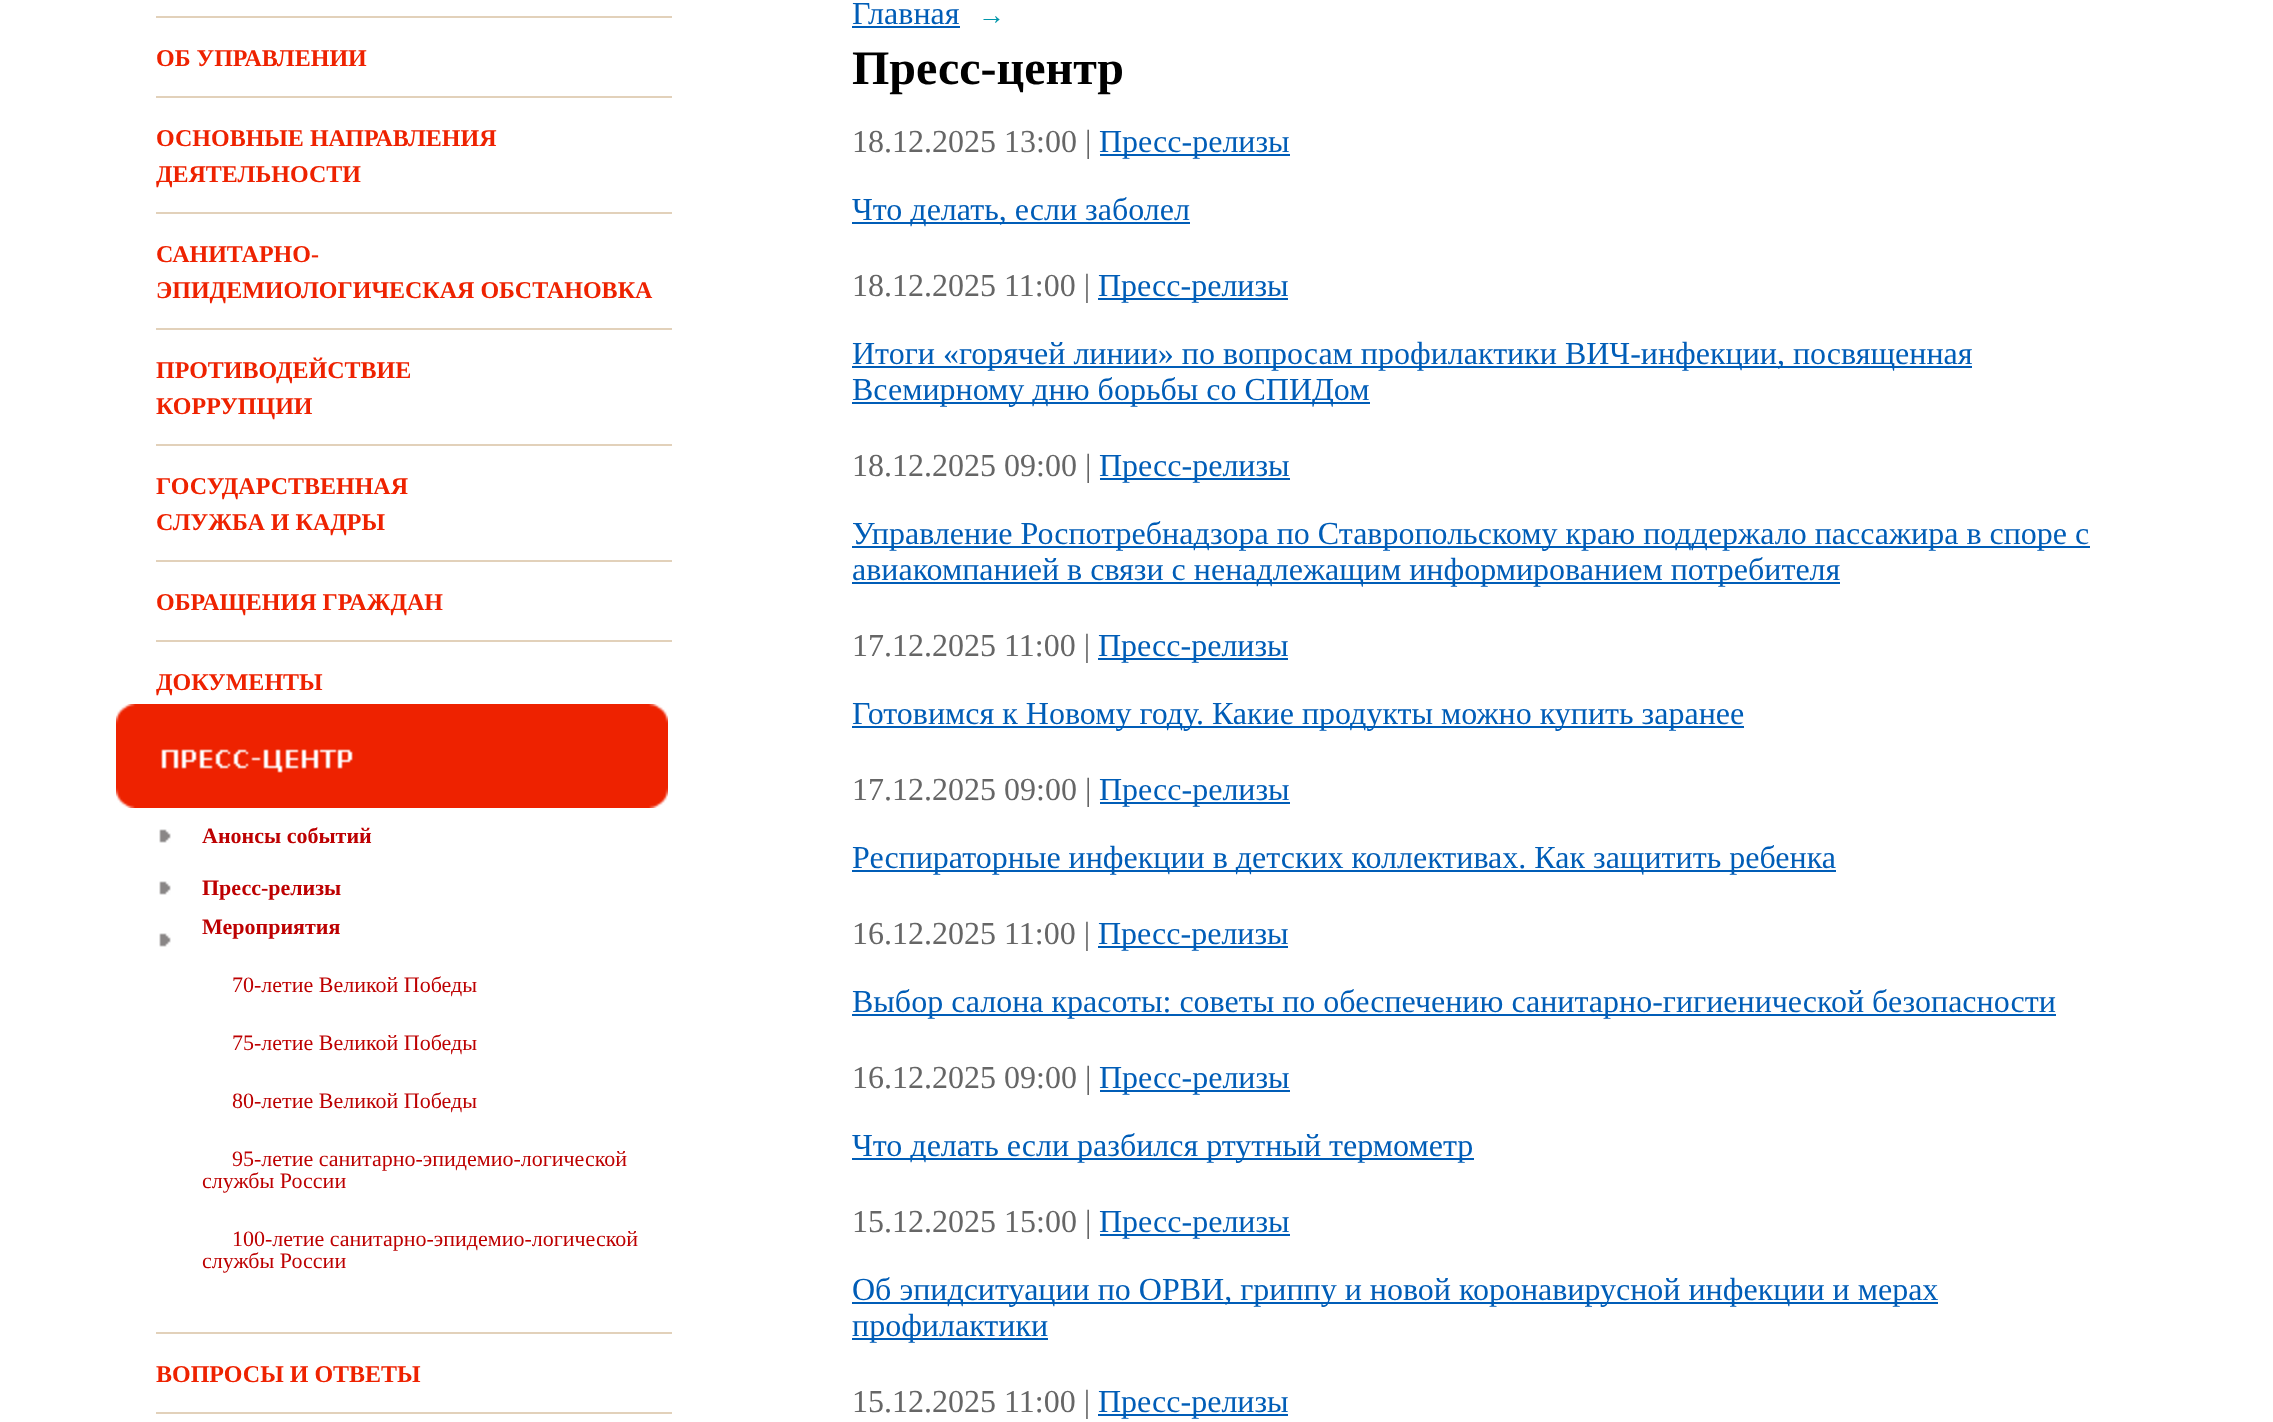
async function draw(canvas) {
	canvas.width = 2273;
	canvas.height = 1422;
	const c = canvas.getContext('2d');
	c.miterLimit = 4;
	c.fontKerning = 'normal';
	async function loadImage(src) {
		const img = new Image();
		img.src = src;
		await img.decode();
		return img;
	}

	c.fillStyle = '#fff';
	c.fillRect(0, 0, 2273, 1422);
	c.fillStyle = '#e2d1ba';
	c.fillRect(156, 16, 516, 2);
	c.font = 'bold 24px Liberation Serif';
	c.fillStyle = '#e20';
	c.fillText('ОБ УПРАВЛЕНИИ', 156, 66);
	c.fillStyle = '#e2d1ba';
	c.fillRect(156, 96, 516, 2);
	c.fillStyle = '#e20';
	c.fillText('ОСНОВНЫЕ НАПРАВЛЕНИЯ', 156, 146);
	c.fillText('ДЕЯТЕЛЬНОСТИ', 156, 182);
	c.fillStyle = '#e2d1ba';
	c.fillRect(156, 212, 516, 2);
	c.fillStyle = '#e20';
	c.fillText('САНИТАРНО-', 156, 262);
	c.fillText('ЭПИДЕМИОЛОГИЧЕСКАЯ ОБСТАНОВКА', 156, 298);
	c.fillStyle = '#e2d1ba';
	c.fillRect(156, 328, 516, 2);
	c.fillStyle = '#e20';
	c.fillText('ПРОТИВОДЕЙСТВИЕ', 156, 378);
	c.fillText('КОРРУПЦИИ', 156, 414);
	c.fillStyle = '#e2d1ba';
	c.fillRect(156, 444, 516, 2);
	c.fillStyle = '#e20';
	c.fillText('ГОСУДАРСТВЕННАЯ', 156, 494);
	c.fillText('СЛУЖБА И КАДРЫ', 156, 530);
	c.fillStyle = '#e2d1ba';
	c.fillRect(156, 560, 516, 2);
	c.fillStyle = '#e20';
	c.fillText('ОБРАЩЕНИЯ ГРАЖДАН', 156, 610);
	c.fillStyle = '#e2d1ba';
	c.fillRect(156, 640, 516, 2);
	c.fillStyle = '#e20';
	c.fillText('ДОКУМЕНТЫ', 156, 690);
	c.drawImage(await loadImage('img1.png'), 116, 704, 552, 104);
	c.drawImage(await loadImage('img2.png'), 159, 829, 12, 14);
	c.font = 'bold 22px Liberation Serif';
	c.fillStyle = '#bd0001';
	c.fillText('Анонсы событий', 202, 843);
	c.drawImage(await loadImage('img2.png'), 159, 881, 12, 14);
	c.fillText('Пресс-релизы', 202, 895);
	c.drawImage(await loadImage('img2.png'), 159, 933, 12, 14);
	c.fillText('Мероприятия', 202, 934);
	c.font = '22px Liberation Serif';
	for (const [text, x, y] of [
		['70-летие Великой Победы', 232, 992],
		['75-летие Великой Победы', 232, 1050],
		['80-летие Великой Победы', 232, 1108],
		['95-летие санитарно-эпидемио-логической', 232, 1166],
		['службы России', 202, 1188],
		['100-летие санитарно-эпидемио-логической', 232, 1246],
		['службы России', 202, 1268],
	]) {
		c.fillText(text, x, y);
	}
	c.fillStyle = '#e2d1ba';
	c.fillRect(156, 1332, 516, 2);
	c.font = 'bold 24px Liberation Serif';
	c.fillStyle = '#e20';
	c.fillText('ВОПРОСЫ И ОТВЕТЫ', 156, 1382);
	c.fillStyle = '#e2d1ba';
	c.fillRect(156, 1412, 516, 2);
	c.font = '32px Liberation Serif';
	c.fillStyle = '#005db7';
	c.fillText('Главная', 852, 24);
	c.fillRect(852, 26, 108, 2);
	c.font = '27px Liberation Serif';
	c.fillStyle = '#0096aa';
	c.fillText('→', 978, 24);
	c.font = 'bold 48px Liberation Serif';
	c.fillStyle = '#000';
	c.fillText('Пресс-центр', 852, 84);
	c.font = '32px Liberation Serif';
	c.fillStyle = '#666';
	c.fillText('18.12.2025 13:00 |', 852, 152);
	c.fillStyle = '#005db7';
	c.fillRect(1100, 154, 190, 2);
	c.fillText('Пресс-релизы', 1099, 152);
	c.fillRect(852, 222, 338, 2);
	c.fillText('Что делать, если заболел', 852, 220);
	c.fillStyle = '#666';
	c.fillText('18.12.2025 11:00 |', 852, 296);
	c.fillStyle = '#005db7';
	c.fillRect(1098, 298, 190, 2);
	c.fillText('Пресс-релизы', 1098, 296);
	c.fillRect(852, 366, 1120, 2);
	c.fillText('Итоги «горячей линии» по вопросам профилактики ВИЧ-инфекции, посвященная', 852, 364);
	c.fillRect(852, 402, 518, 2);
	c.fillText('Всемирному дню борьбы со СПИДом', 852, 400);
	c.fillStyle = '#666';
	c.fillText('18.12.2025 09:00 |', 852, 476);
	c.fillStyle = '#005db7';
	c.fillRect(1100, 478, 190, 2);
	c.fillText('Пресс-релизы', 1099, 476);
	c.fillRect(852, 546, 1238, 2);
	c.fillText('Управление Роспотребнадзора по Ставропольскому краю поддержало пассажира в споре с', 852, 544);
	c.fillRect(852, 582, 988, 2);
	c.fillText('авиакомпанией в связи с ненадлежащим информированием потребителя', 852, 580);
	c.fillStyle = '#666';
	c.fillText('17.12.2025 11:00 |', 852, 656);
	c.fillStyle = '#005db7';
	c.fillRect(1098, 658, 190, 2);
	c.fillText('Пресс-релизы', 1098, 656);
	c.fillRect(852, 726, 892, 2);
	c.fillText('Готовимся к Новому году. Какие продукты можно купить заранее', 852, 724);
	c.fillStyle = '#666';
	c.fillText('17.12.2025 09:00 |', 852, 800);
	c.fillStyle = '#005db7';
	c.fillRect(1100, 802, 190, 2);
	c.fillText('Пресс-релизы', 1099, 800);
	c.fillRect(852, 870, 984, 2);
	c.fillText('Респираторные инфекции в детских коллективах. Как защитить ребенка', 852, 868);
	c.fillStyle = '#666';
	c.fillText('16.12.2025 11:00 |', 852, 944);
	c.fillStyle = '#005db7';
	c.fillRect(1098, 946, 190, 2);
	c.fillText('Пресс-релизы', 1098, 944);
	c.fillRect(852, 1014, 1204, 2);
	c.fillText('Выбор салона красоты: советы по обеспечению санитарно-гигиенической безопасности', 852, 1012);
	c.fillStyle = '#666';
	c.fillText('16.12.2025 09:00 |', 852, 1088);
	c.fillStyle = '#005db7';
	c.fillRect(1100, 1090, 190, 2);
	c.fillText('Пресс-релизы', 1099, 1088);
	c.fillRect(852, 1158, 622, 2);
	c.fillText('Что делать если разбился ртутный термометр', 852, 1156);
	c.fillStyle = '#666';
	c.fillText('15.12.2025 15:00 |', 852, 1232);
	c.fillStyle = '#005db7';
	c.fillRect(1100, 1234, 190, 2);
	c.fillText('Пресс-релизы', 1099, 1232);
	c.fillRect(852, 1302, 1086, 2);
	c.fillText('Об эпидситуации по ОРВИ, гриппу и новой коронавирусной инфекции и мерах', 852, 1300);
	c.fillRect(852, 1338, 196, 2);
	c.fillText('профилактики', 852, 1336);
	c.fillStyle = '#666';
	c.fillText('15.12.2025 11:00 |', 852, 1412);
	c.fillStyle = '#005db7';
	c.fillRect(1098, 1414, 190, 2);
	c.fillText('Пресс-релизы', 1098, 1412);
}

draw(document.querySelector('canvas'));
